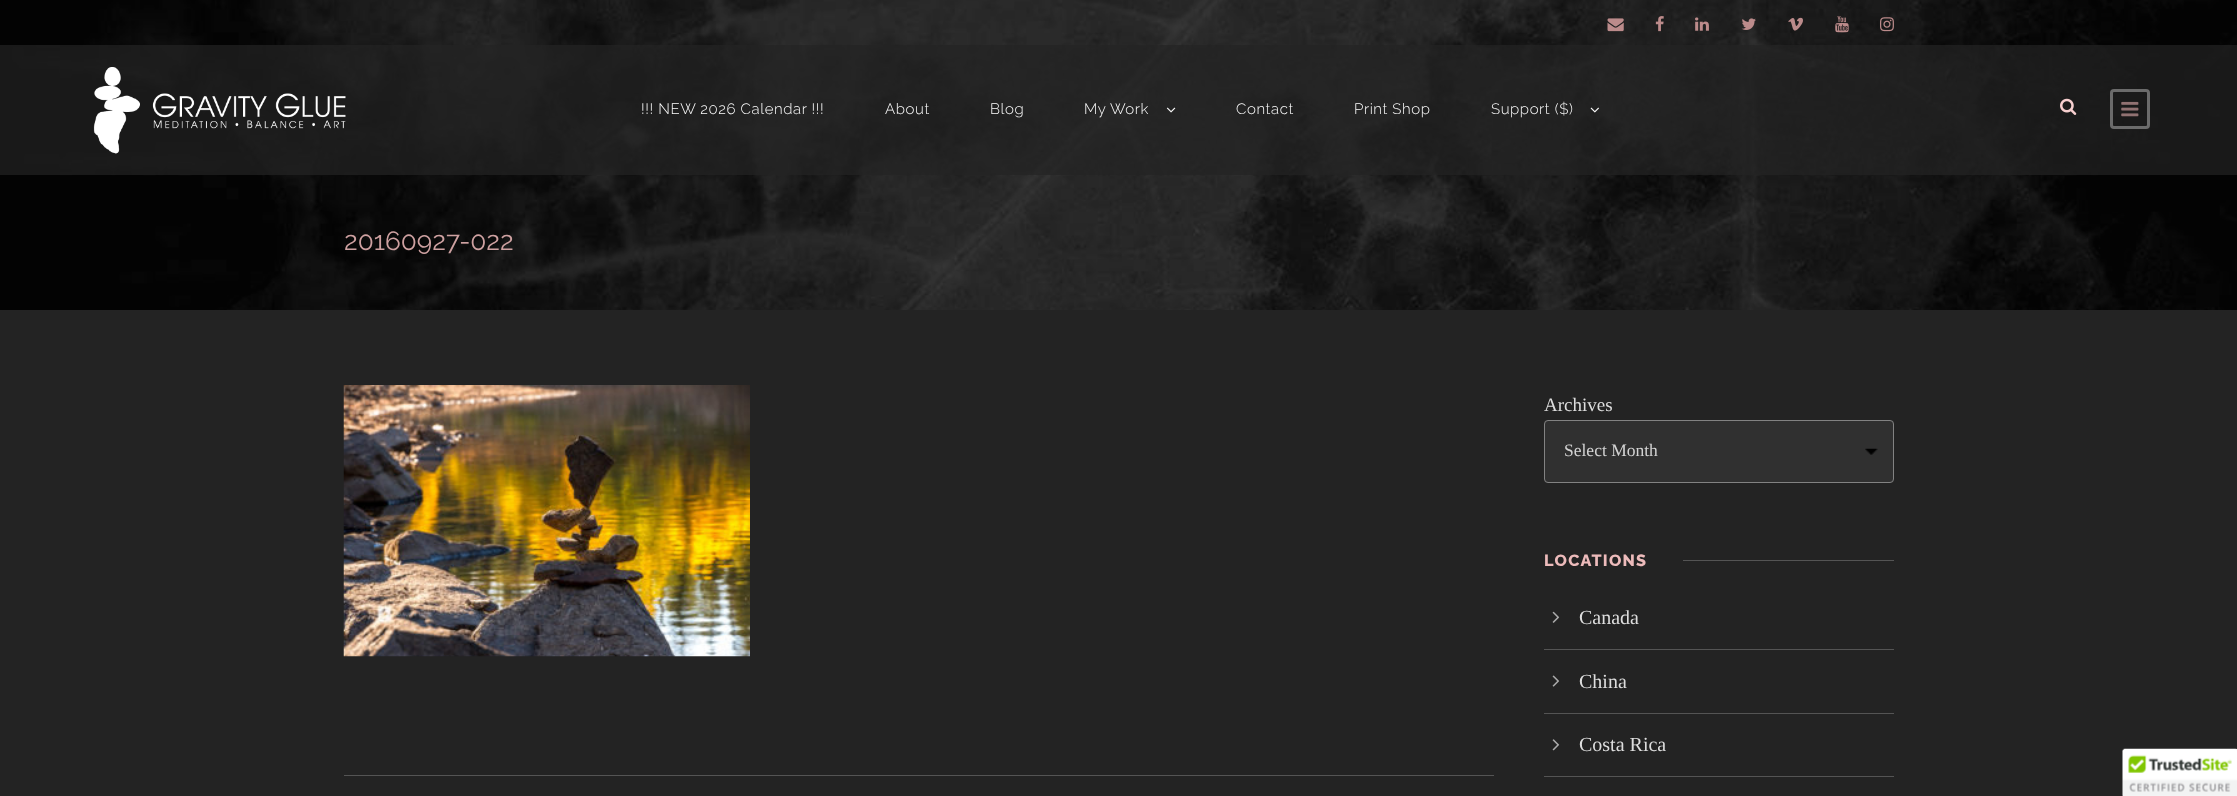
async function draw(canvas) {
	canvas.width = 2237;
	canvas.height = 796;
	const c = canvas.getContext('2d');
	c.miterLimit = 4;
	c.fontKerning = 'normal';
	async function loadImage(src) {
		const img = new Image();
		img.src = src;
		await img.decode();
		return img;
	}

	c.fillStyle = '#232323';
	c.fillRect(0, 0, 2237, 796);
	c.drawImage(await loadImage('img13.png'), 0, 0, 2237, 310);
	c.drawImage(await loadImage('img1.png'), 1607, 18, 17, 14);
	c.drawImage(await loadImage('img2.png'), 1655, 16, 9, 16);
	c.drawImage(await loadImage('img3.png'), 1695, 17, 14, 14);
	c.drawImage(await loadImage('img4.png'), 1741, 18, 15, 12);
	c.drawImage(await loadImage('img5.png'), 1788, 17, 15, 14);
	c.drawImage(await loadImage('img6.png'), 1835, 16, 14, 17);
	c.drawImage(await loadImage('img7.png'), 1880, 17, 14, 15);
	c.fillStyle = '#232323b3';
	c.fillRect(0, 45, 2237, 130);
	c.drawImage(await loadImage('img8.png'), 93, 67, 253, 87);
	c.letterSpacing = '0.6px';
	c.font = '300 15px Raleway';
	c.fillStyle = '#fcfcfc';
	for (const [text, x, y] of [
		['!!! NEW 2026 Calendar !!!', 641, 114],
		['About', 885, 114],
		['Blog', 990, 114],
		['My Work', 1084, 114],
	]) {
		c.fillText(text, x, y);
	}
	c.drawImage(await loadImage('img9.png'), 1166, 107, 10, 6);
	for (const [text, x, y] of [
		['Contact', 1236, 114],
		['Print Shop', 1354, 114],
		['Support ($)', 1491, 114],
	]) {
		c.fillText(text, x, y);
	}
	c.drawImage(await loadImage('img10.png'), 1590, 107, 9, 6);
	c.drawImage(await loadImage('img11.png'), 2060, 98, 17, 17);
	c.beginPath();
	c.roundRect(2111.5, 90.5, 37, 37, 2.5);
	c.strokeStyle = '#6b6b6b';
	c.lineWidth = 3;
	c.stroke();
	c.drawImage(await loadImage('img12.png'), 2121, 101, 18, 16);
	c.letterSpacing = '0px';
	c.font = '26.25px Raleway';
	c.fillStyle = '#cea1a1';
	c.fillText('20160927-022', 344, 250);
	c.drawImage(await loadImage('img14.png'), 343, 385, 407, 272);
	c.fillStyle = '#545454';
	c.fillRect(344, 775, 1150, 1);
	c.font = '19px Liberation Serif';
	c.fillStyle = '#ddd';
	c.fillText('Archives', 1544, 411);
	c.fillStyle = '#303030';
	c.beginPath();
	c.roundRect(1544, 420, 350, 63, 4);
	c.fill();
	c.drawImage(await loadImage('img15.png'), 1865, 448, 13, 7);
	c.beginPath();
	c.roundRect(1544.5, 420.5, 349, 62, 3.5);
	c.strokeStyle = '#828282';
	c.lineWidth = 1;
	c.stroke();
	c.font = '17.5px Liberation Serif';
	c.fillStyle = '#d3d3d3';
	c.fillText('Select Month', 1564, 456);
	c.letterSpacing = '1.25px';
	c.font = '800 16.25px Raleway';
	c.fillStyle = '#edbbbb';
	c.fillText('LOCATIONS', 1544, 566);
	c.fillStyle = '#545454';
	c.fillRect(1683, 560, 211, 1);
	c.fillRect(1544, 649, 350, 1);
	c.drawImage(await loadImage('img16.png'), 1552, 611, 8, 12);
	c.letterSpacing = '0px';
	c.font = '20px Liberation Serif';
	c.fillStyle = '#ddd';
	c.fillText('Canada', 1579, 624);
	c.fillStyle = '#545454';
	c.fillRect(1544, 713, 350, 1);
	c.drawImage(await loadImage('img17.png'), 1552, 675, 8, 12);
	c.fillStyle = '#ddd';
	c.fillText('China', 1579, 688);
	c.fillStyle = '#545454';
	c.fillRect(1544, 776, 350, 1);
	c.drawImage(await loadImage('img18.png'), 1552, 739, 8, 12);
	c.fillStyle = '#ddd';
	c.fillText('Costa Rica', 1579, 751);
	c.fillStyle = '#fff';
	c.beginPath();
	c.moveTo(2125.5, 749);
	c.lineTo(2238, 749);
	c.lineTo(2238, 796);
	c.lineTo(2123, 796);
	c.lineTo(2123, 751.5);
	c.bezierCurveTo(2123, 750, 2124, 749, 2125.5, 749);
	c.closePath();
	c.fill();
	c.drawImage(await loadImage('img19.png'), 2122, 748, 115, 48);
}

draw(document.querySelector('canvas'));
